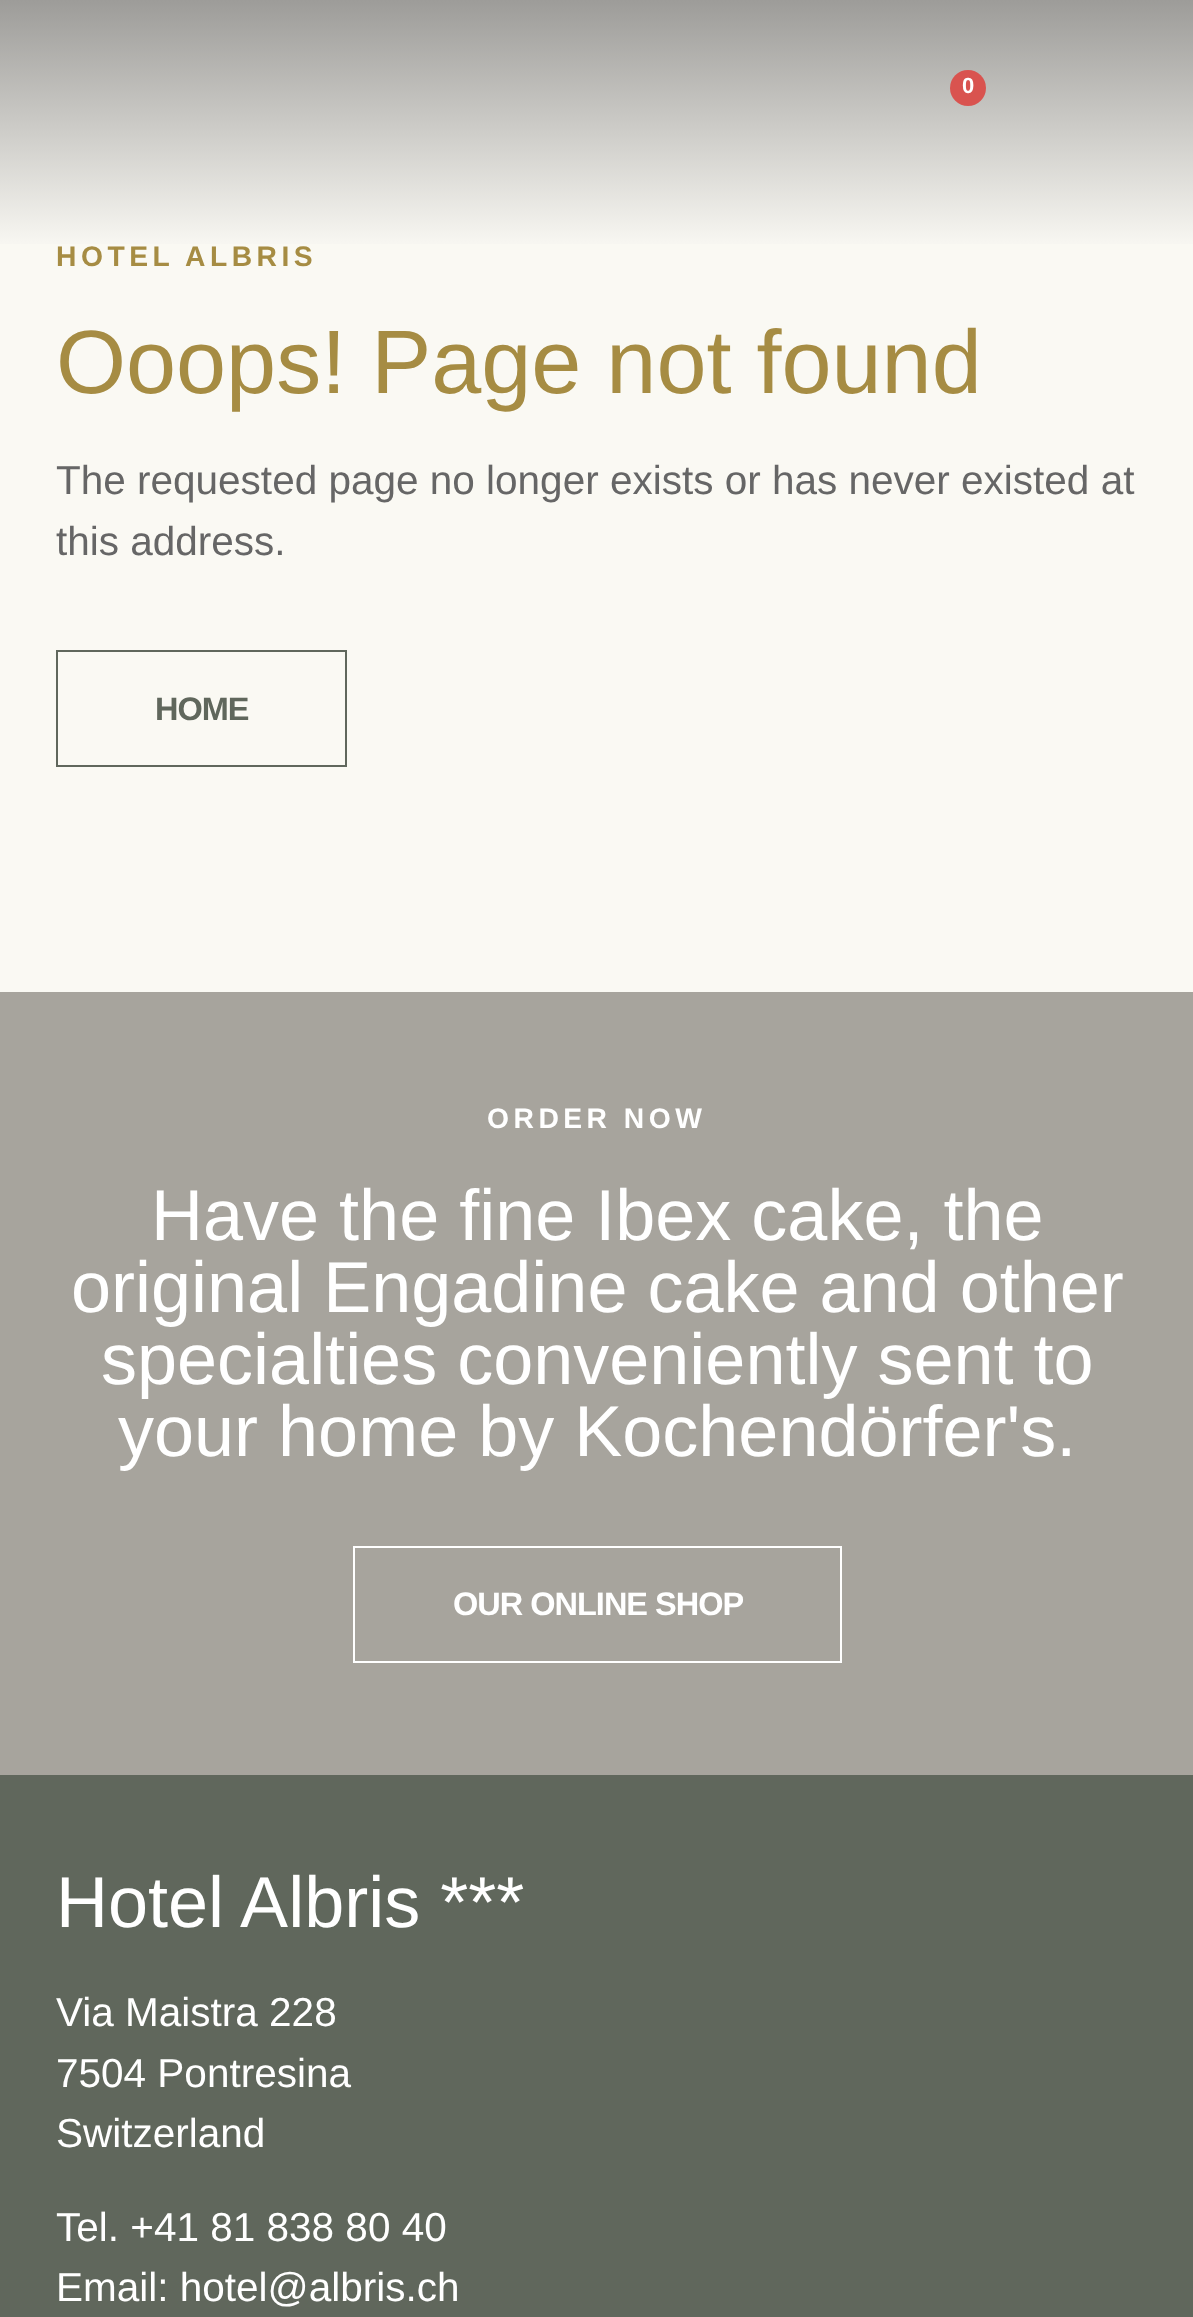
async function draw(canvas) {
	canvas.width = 1193;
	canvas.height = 2317;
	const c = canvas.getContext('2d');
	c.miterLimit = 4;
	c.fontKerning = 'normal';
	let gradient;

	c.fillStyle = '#faf9f3';
	c.fillRect(0, 0, 1193, 2317);
	gradient = c.createLinearGradient(597, 0, 597, 248);
	gradient.addColorStop(0, '#9d9c99');
	gradient.addColorStop(1, '#f9f8f3');
	c.fillStyle = gradient;
	c.fillRect(0, 0, 1193, 244);
	c.fillStyle = '#d9534f';
	c.beginPath();
	c.arc(968, 88, 18, 0, 2 * Math.PI);
	c.fill();
	c.letterSpacing = '-1px';
	c.font = 'bold 22px Liberation Sans';
	c.fillStyle = '#fff';
	c.fillText('0', 962, 93);
	c.letterSpacing = '4.5px';
	c.font = 'bold 28.25px Liberation Sans';
	c.fillStyle = '#a68c43';
	c.fillText('HOTEL ALBRIS', 56, 266);
	c.letterSpacing = '0px';
	c.font = '90px Liberation Sans';
	c.fillText('Ooops! Page not found', 56, 393);
	c.font = '40.5px Liberation Sans';
	c.fillStyle = '#666';
	c.fillText('The requested page no longer exists or has never existed at', 56, 494);
	c.fillText('this address.', 56, 555);
	c.strokeStyle = '#60675c';
	c.lineWidth = 2;
	c.strokeRect(57, 651, 289, 115);
	c.letterSpacing = '-1px';
	c.font = 'bold 32.5px Liberation Sans';
	c.fillStyle = '#60675c';
	c.fillText('HOME', 155, 720);
	c.fillStyle = '#a7a49d';
	c.fillRect(0, 992, 1193, 783);
	c.letterSpacing = '4.5px';
	c.font = 'bold 28.25px Liberation Sans';
	c.fillStyle = '#fff';
	c.fillText('ORDER NOW', 487, 1128);
	c.letterSpacing = '0px';
	c.font = '72px Liberation Sans';
	for (const [text, x, y] of [
		['Have the fine Ibex cake, the', 151, 1240],
		['original Engadine cake and other', 71, 1312],
		['specialties conveniently sent to', 101, 1384],
		['your home by Kochendörfer\'s.', 118, 1456],
	]) {
		c.fillText(text, x, y);
	}
	c.strokeStyle = '#fff';
	c.strokeRect(354, 1547, 487, 115);
	c.letterSpacing = '-1px';
	c.font = 'bold 32.5px Liberation Sans';
	c.fillText('OUR ONLINE SHOP', 453, 1615);
	c.fillStyle = '#60675c';
	c.fillRect(0, 1775, 1193, 542);
	c.letterSpacing = '0px';
	c.font = '72px Liberation Sans';
	c.fillStyle = '#fff';
	c.fillText('Hotel Albris ***', 56, 1927);
	c.font = '40.5px Liberation Sans';
	for (const [text, x, y] of [
		['Via Maistra 228', 56, 2026],
		['7504 Pontresina', 56, 2087],
		['Switzerland', 56, 2147],
		['Tel. +41 81 838 80 40', 56, 2241],
		['Email: hotel@albris.ch', 56, 2301],
	]) {
		c.fillText(text, x, y);
	}
}

draw(document.querySelector('canvas'));
